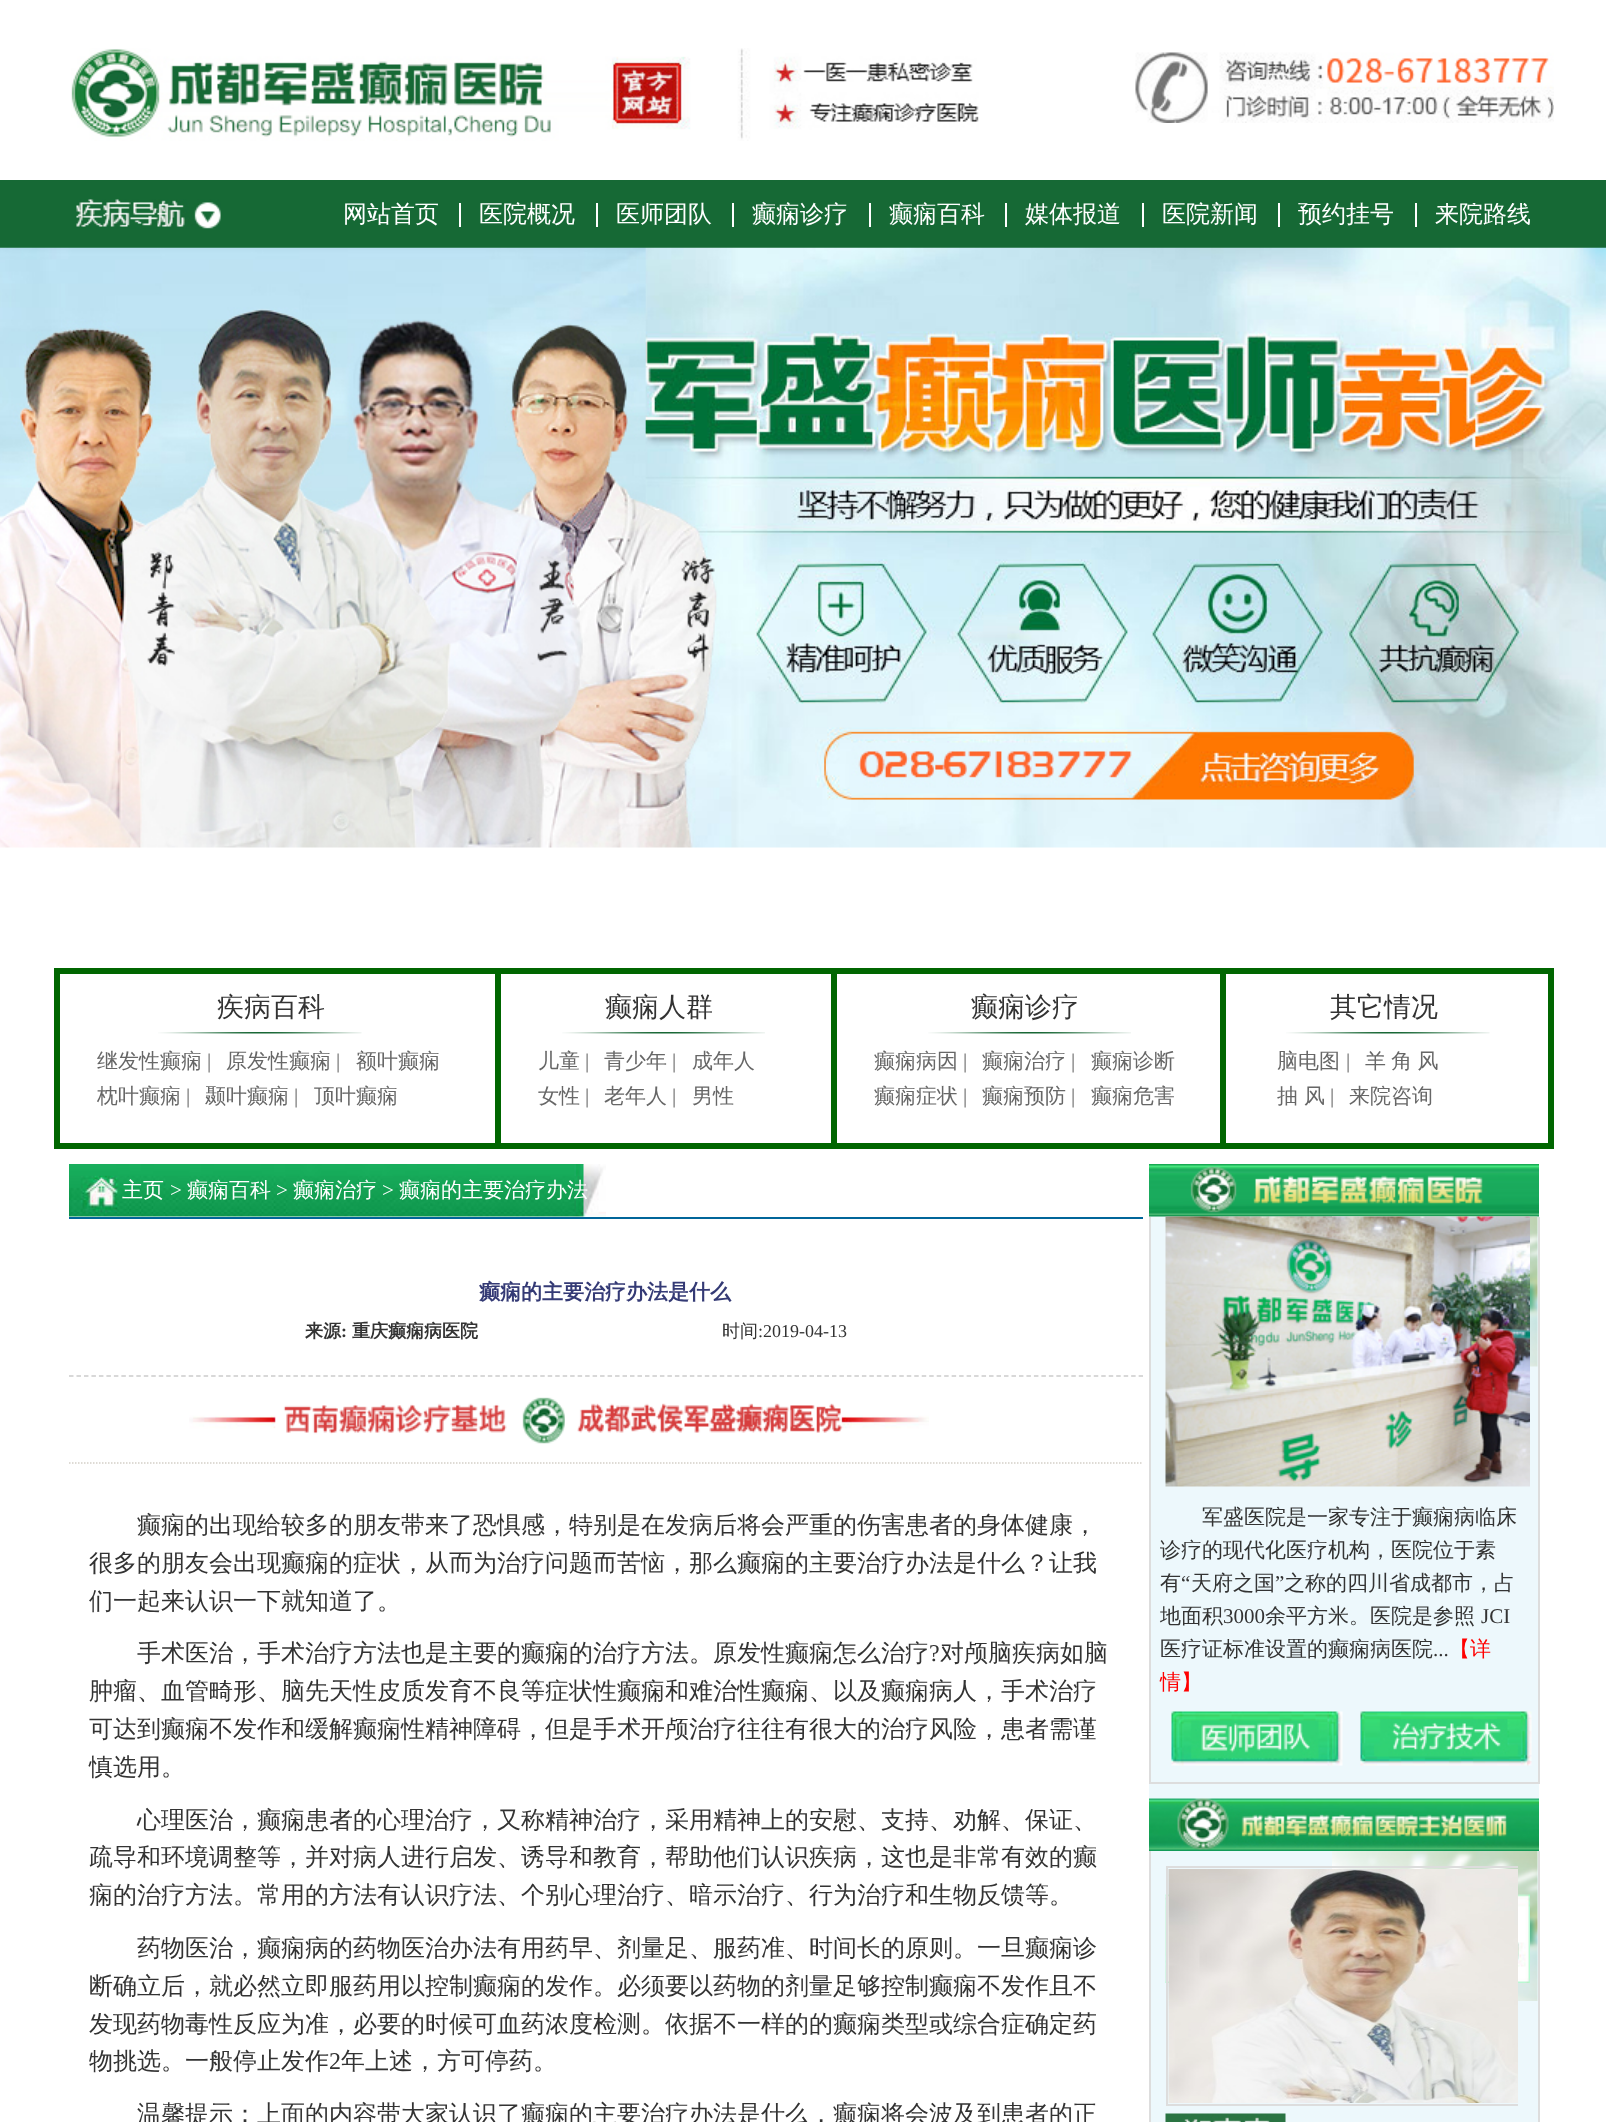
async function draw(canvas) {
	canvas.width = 1606;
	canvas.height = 2122;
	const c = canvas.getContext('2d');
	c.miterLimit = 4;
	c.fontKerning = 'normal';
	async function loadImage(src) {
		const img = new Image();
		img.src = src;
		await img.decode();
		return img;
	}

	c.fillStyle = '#fff';
	c.fillRect(0, 0, 1606, 2122);
	c.drawImage(await loadImage('img1.png'), 71, 48, 908, 93);
	c.drawImage(await loadImage('img2.png'), 1135, 52, 419, 71);
	c.fillStyle = '#166935';
	c.fillRect(0, 180, 1606, 68);
	c.drawImage(await loadImage('img3.png'), 76, 199, 145, 30);
	c.fillStyle = '#fff';
	c.fillRect(459, 203, 2, 24);
	c.font = '500 24px WenQuanYi Zen Hei';
	c.fillText('网站首页', 343, 222);
	c.fillRect(596, 203, 2, 24);
	c.fillText('医院概况', 479, 222);
	c.fillRect(732, 203, 2, 24);
	c.fillText('医师团队', 616, 222);
	c.fillRect(869, 203, 2, 24);
	c.fillText('癫痫诊疗', 752, 222);
	c.fillRect(1005, 203, 2, 24);
	c.fillText('癫痫百科', 889, 222);
	c.fillRect(1142, 203, 2, 24);
	c.fillText('媒体报道', 1025, 222);
	c.fillRect(1278, 203, 2, 24);
	c.fillText('医院新闻', 1162, 222);
	c.fillRect(1415, 203, 2, 24);
	c.fillText('预约挂号', 1298, 222);
	c.save();
	c.beginPath();
	c.roundRect(1416, 203, 135, 24, 6);
	c.clip();
	c.fillText('来院路线', 1435, 222);
	c.restore();
	c.drawImage(await loadImage('img4.png'), 0, 247, 1606, 601);
	c.strokeStyle = '#060';
	c.lineWidth = 6;
	c.strokeRect(57, 971, 1494, 175);
	c.fillStyle = '#060';
	c.fillRect(495, 974, 6, 169);
	c.font = '500 27px WenQuanYi Zen Hei';
	c.fillStyle = '#333';
	c.fillText('疾病百科', 217, 1016);
	c.drawImage(await loadImage('img5.png'), 158, 1032, 204, 2);
	c.font = '500 21px WenQuanYi Zen Hei';
	c.fillStyle = '#676767';
	c.fillText('继发性癫痫', 97, 1068);
	c.font = '21px Liberation Serif';
	c.fillText('|', 207, 1068);
	c.font = '500 21px WenQuanYi Zen Hei';
	c.fillText('原发性癫痫', 226, 1068);
	c.font = '21px Liberation Serif';
	c.fillText('|', 336, 1068);
	c.font = '500 21px WenQuanYi Zen Hei';
	c.fillText('额叶癫痫', 356, 1068);
	c.fillText('枕叶癫痫', 97, 1103);
	c.font = '21px Liberation Serif';
	c.fillText('|', 186, 1103);
	c.font = '500 21px WenQuanYi Zen Hei';
	c.fillText('颞叶癫痫', 205, 1103);
	c.font = '21px Liberation Serif';
	c.fillText('|', 294, 1103);
	c.font = '500 21px WenQuanYi Zen Hei';
	c.fillText('顶叶癫痫', 314, 1103);
	c.fillStyle = '#060';
	c.fillRect(831, 974, 6, 169);
	c.font = '500 27px WenQuanYi Zen Hei';
	c.fillStyle = '#333';
	c.fillText('癫痫人群', 605, 1016);
	c.drawImage(await loadImage('img6.png'), 562, 1032, 203, 2);
	c.font = '500 21px WenQuanYi Zen Hei';
	c.fillStyle = '#676767';
	c.fillText('儿童', 538, 1068);
	c.font = '21px Liberation Serif';
	c.fillText('|', 585, 1068);
	c.font = '500 21px WenQuanYi Zen Hei';
	c.fillText('青少年', 604, 1068);
	c.font = '21px Liberation Serif';
	c.fillText('|', 672, 1068);
	c.font = '500 21px WenQuanYi Zen Hei';
	c.fillText('成年人', 692, 1068);
	c.fillText('女性', 538, 1103);
	c.font = '21px Liberation Serif';
	c.fillText('|', 585, 1103);
	c.font = '500 21px WenQuanYi Zen Hei';
	c.fillText('老年人', 604, 1103);
	c.font = '21px Liberation Serif';
	c.fillText('|', 672, 1103);
	c.font = '500 21px WenQuanYi Zen Hei';
	c.fillText('男性', 692, 1103);
	c.fillStyle = '#060';
	c.fillRect(1220, 974, 6, 169);
	c.font = '500 27px WenQuanYi Zen Hei';
	c.fillStyle = '#333';
	c.fillText('癫痫诊疗', 971, 1016);
	c.drawImage(await loadImage('img7.png'), 928, 1032, 203, 2);
	c.font = '500 21px WenQuanYi Zen Hei';
	c.fillStyle = '#676767';
	c.fillText('癫痫病因', 874, 1068);
	c.font = '21px Liberation Serif';
	c.fillText('|', 963, 1068);
	c.font = '500 21px WenQuanYi Zen Hei';
	c.fillText('癫痫治疗', 982, 1068);
	c.font = '21px Liberation Serif';
	c.fillText('|', 1071, 1068);
	c.font = '500 21px WenQuanYi Zen Hei';
	c.fillText('癫痫诊断', 1091, 1068);
	c.fillText('癫痫症状', 874, 1103);
	c.font = '21px Liberation Serif';
	c.fillText('|', 963, 1103);
	c.font = '500 21px WenQuanYi Zen Hei';
	c.fillText('癫痫预防', 982, 1103);
	c.font = '21px Liberation Serif';
	c.fillText('|', 1071, 1103);
	c.font = '500 21px WenQuanYi Zen Hei';
	c.fillText('癫痫危害', 1091, 1103);
	c.font = '500 27px WenQuanYi Zen Hei';
	c.fillStyle = '#333';
	c.fillText('其它情况', 1330, 1016);
	c.drawImage(await loadImage('img5.png'), 1286, 1032, 204, 2);
	c.font = '500 21px WenQuanYi Zen Hei';
	c.fillStyle = '#676767';
	c.fillText('脑电图', 1277, 1068);
	c.font = '21px Liberation Serif';
	c.fillText('|', 1346, 1068);
	c.wordSpacing = '-1px';
	c.font = '500 21px WenQuanYi Zen Hei';
	c.fillText('羊 角 风', 1365, 1068);
	c.wordSpacing = '0px';
	c.fillText('抽', 1277, 1103);
	c.fillText('风', 1304, 1103);
	c.font = '21px Liberation Serif';
	c.fillText('|', 1330, 1103);
	c.font = '500 21px WenQuanYi Zen Hei';
	c.fillText('来院咨询', 1349, 1103);
	c.fillStyle = '#006599';
	c.fillRect(69, 1217, 1074, 2);
	c.drawImage(await loadImage('img8.png'), 69, 1164, 537, 53);
	c.fillStyle = '#fff';
	c.fillText('主页', 122, 1197);
	c.font = '21px Liberation Serif';
	c.fillText('>', 170, 1197);
	c.font = '500 21px WenQuanYi Zen Hei';
	c.fillText('癫痫百科', 187, 1197);
	c.font = '21px Liberation Serif';
	c.fillText('>', 276, 1197);
	c.font = '500 21px WenQuanYi Zen Hei';
	c.fillText('癫痫治疗', 293, 1197);
	c.font = '21px Liberation Serif';
	c.fillText('>', 382, 1197);
	c.font = '500 21px WenQuanYi Zen Hei';
	c.fillText('癫痫的主要治疗办法', 399, 1197);
	c.font = 'bold 21px WenQuanYi Zen Hei';
	c.fillStyle = '#343a75';
	c.fillText('癫痫的主要治疗办法是什么', 479, 1299);
	c.beginPath();
	c.moveTo(69, 1376);
	c.lineTo(1143, 1376);
	c.strokeStyle = '#ccc';
	c.lineWidth = 1.5;
	c.setLineDash([4.5, 2.98]);
	c.stroke();
	c.font = 'bold 18px WenQuanYi Zen Hei';
	c.fillStyle = '#333';
	c.fillText('来源', 305, 1337);
	c.font = 'bold 18px Liberation Serif';
	c.fillText(':', 341, 1337);
	c.font = 'bold 18px WenQuanYi Zen Hei';
	c.fillText('重庆癫痫病医院', 352, 1337);
	c.font = '500 18px WenQuanYi Zen Hei';
	c.fillText('时间', 722, 1337);
	c.font = '18px Liberation Serif';
	c.fillText(':2019-04-13', 758, 1337);
	c.drawImage(await loadImage('img9.png'), 189, 1397, 740, 47);
	c.beginPath();
	c.moveTo(69, 1463);
	c.lineTo(1143, 1463);
	c.strokeStyle = '#d4d0c8';
	c.setLineDash([1.5, 1.5]);
	c.stroke();
	c.font = '500 24px WenQuanYi Zen Hei';
	for (const [text, x, y] of [
		['癫痫的出现给较多的朋友带来了恐惧感，特别是在发病后将会严重的伤害患者的身体健康，', 137, 1533],
		['很多的朋友会出现癫痫的症状，从而为治疗问题而苦恼，那么癫痫的主要治疗办法是什么？让我', 89, 1571],
		['们一起来认识一下就知道了。', 89, 1609],
		['手术医治，手术治疗方法也是主要的癫痫的治疗方法。原发性癫痫怎么治疗', 137, 1661],
	]) {
		c.fillText(text, x, y);
	}
	c.font = '24px Liberation Serif';
	c.fillText('?', 929, 1661);
	c.font = '500 24px WenQuanYi Zen Hei';
	for (const [text, x, y] of [
		['对颅脑疾病如脑', 940, 1661],
		['肿瘤、血管畸形、脑先天性皮质发育不良等症状性癫痫和难治性癫痫、以及癫痫病人，手术治疗', 89, 1699],
		['可达到癫痫不发作和缓解癫痫性精神障碍，但是手术开颅治疗往往有很大的治疗风险，患者需谨', 89, 1737],
		['慎选用。', 89, 1775],
		['心理医治，癫痫患者的心理治疗，又称精神治疗，采用精神上的安慰、支持、劝解、保证、', 137, 1828],
		['疏导和环境调整等，并对病人进行启发、诱导和教育，帮助他们认识疾病，这也是非常有效的癫', 89, 1865],
		['痫的治疗方法。常用的方法有认识疗法、个别心理治疗、暗示治疗、行为治疗和生物反馈等。', 89, 1903],
		['药物医治，癫痫病的药物医治办法有用药早、剂量足、服药准、时间长的原则。一旦癫痫诊', 137, 1956],
		['断确立后，就必然立即服药用以控制癫痫的发作。必须要以药物的剂量足够控制癫痫不发作且不', 89, 1994],
		['发现药物毒性反应为准，必要的时候可血药浓度检测。依据不一样的的癫痫类型或综合症确定药', 89, 2032],
		['物挑选。一般停止发作', 89, 2069],
	]) {
		c.fillText(text, x, y);
	}
	c.font = '24px Liberation Serif';
	c.fillText('2', 329, 2069);
	c.font = '500 24px WenQuanYi Zen Hei';
	c.fillText('年上述，方可停药。', 341, 2069);
	c.fillText('温馨提示：上面的内容带大家认识了癫痫的主要治疗办法是什么，癫痫将会波及到患者的正', 137, 2122);
	c.fillStyle = '#edf8fc';
	c.fillRect(1149, 1216, 390, 906);
	c.drawImage(await loadImage('img10.png'), 1149, 1164, 390, 53);
	c.drawImage(await loadImage('img11.png'), 1332, 1216, 206, 151);
	for (const [x, y, w, h, color] of [
		[1538, 1217, 2, 567, '#ddd'],
		[1149, 1782, 390, 2, '#ddd'],
		[1149, 1217, 2, 567, '#ddd'],
	]) {
		c.fillStyle = color;
		c.fillRect(x, y, w, h);
	}
	c.drawImage(await loadImage('img12.png'), 1165, 1216, 365, 271);
	c.font = '500 21px WenQuanYi Zen Hei';
	c.fillStyle = '#333';
	for (const [text, x, y] of [
		['军盛医院是一家专注于癫痫病临床', 1202, 1524],
		['诊疗的现代化医疗机构，医院位于素', 1160, 1557],
		['有', 1160, 1590],
	]) {
		c.fillText(text, x, y);
	}
	c.font = '21px Liberation Serif';
	c.fillText('“', 1181, 1590);
	c.font = '500 21px WenQuanYi Zen Hei';
	c.fillText('天府之国', 1191, 1590);
	c.font = '21px Liberation Serif';
	c.fillText('”', 1275, 1590);
	c.font = '500 21px WenQuanYi Zen Hei';
	c.fillText('之称的四川省成都市，占', 1284, 1590);
	c.fillText('地面积', 1160, 1623);
	c.font = '21px Liberation Serif';
	c.fillText('3000', 1223, 1623);
	c.font = '500 21px WenQuanYi Zen Hei';
	c.fillText('余平方米。医院是参照', 1265, 1623);
	c.font = '21px Liberation Serif';
	c.fillText('JCI', 1481, 1623);
	c.font = '500 21px WenQuanYi Zen Hei';
	c.fillText('医疗证标准设置的癫痫病医院', 1160, 1656);
	c.font = '21px Liberation Serif';
	c.fillText('...', 1433, 1656);
	c.font = '500 21px WenQuanYi Zen Hei';
	c.fillStyle = '#f00';
	c.fillText('【详', 1449, 1656);
	c.fillText('情】', 1160, 1689);
	c.drawImage(await loadImage('img13.png'), 1171, 1711, 172, 55);
	c.drawImage(await loadImage('img14.png'), 1360, 1711, 172, 55);
	c.drawImage(await loadImage('img15.png'), 1149, 1798, 390, 53);
	c.drawImage(await loadImage('img16.png'), 1332, 1851, 206, 150);
	c.fillStyle = '#ddd';
	c.fillRect(1538, 1851, 2, 271);
	c.fillRect(1149, 1851, 2, 271);
	c.drawImage(await loadImage('img19.png'), 1165, 1894, 365, 89);
	c.save();
	c.beginPath();
	c.rect(1151, 1851, 367, 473);
	c.clip();
	c.strokeStyle = '#ddd';
	c.lineWidth = 2;
	c.setLineDash([]);
	c.strokeRect(1167, 1867, 362, 238);
	c.restore();
	c.drawImage(await loadImage('img17.png'), 1168, 1869, 350, 234);
	c.drawImage(await loadImage('img18.png'), 1165, 2113, 121, 9);
}

draw(document.querySelector('canvas'));
